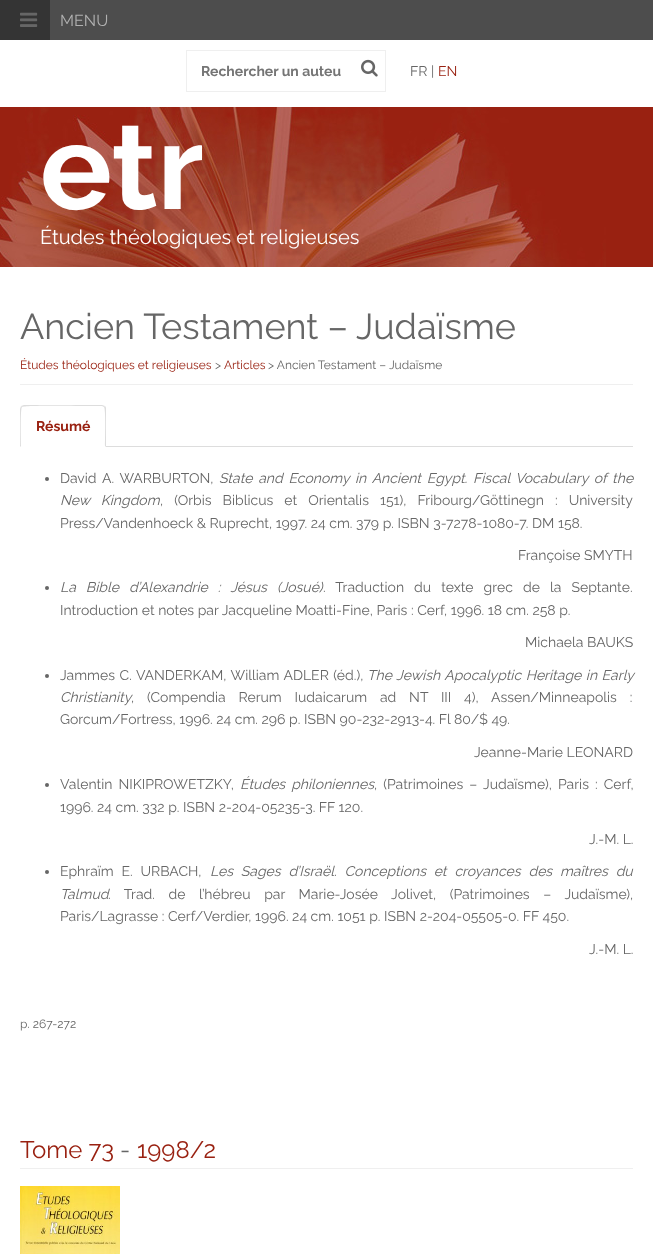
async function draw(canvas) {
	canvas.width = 653;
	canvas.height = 1254;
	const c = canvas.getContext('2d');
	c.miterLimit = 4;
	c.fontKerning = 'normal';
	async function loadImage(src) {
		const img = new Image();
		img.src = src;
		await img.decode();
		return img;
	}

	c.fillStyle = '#fff';
	c.fillRect(0, 0, 653, 1254);
	c.fillStyle = '#4d4d4d';
	c.fillRect(50, 0, 603, 40);
	c.fillStyle = '#343434';
	c.fillRect(0, 0, 50, 40);
	c.drawImage(await loadImage('img1.png'), 20, 12, 18, 15);
	c.font = '16px Raleway';
	c.fillStyle = '#b1b1b1';
	c.fillText('MENU', 60, 26);
	c.strokeStyle = '#efefef';
	c.strokeRect(186.5, 50.5, 199, 41);
	c.font = 'bold 14px Raleway';
	c.fillStyle = '#757575';
	c.fillText('Rechercher un auteu', 201, 76);
	c.drawImage(await loadImage('img2.png'), 361, 59, 17, 18);
	c.font = '14px Raleway';
	c.fillStyle = '#666';
	c.fillText('FR |', 410, 76);
	c.fillStyle = '#992111';
	c.fillText('EN', 438, 76);
	c.fillRect(606, 107, 47, 160);
	c.drawImage(await loadImage('img3.png'), 0, 107, 606, 160);
	c.font = 'bold 120px Raleway';
	c.fillStyle = '#fff';
	c.fillText('etr', 40, 209);
	c.font = '20px Raleway';
	c.fillText('Études théologiques et religieuses', 40, 244);
	c.font = '36px Raleway';
	c.fillStyle = '#666';
	c.fillText('Ancien Testament –', 20, 339);
	c.fillText('Judaïsme', 356, 339);
	c.fillStyle = '#efefef';
	c.fillRect(20, 384, 613, 1);
	c.font = '12px Raleway';
	c.fillStyle = '#992111';
	c.fillText('Études théologiques et religieuses', 20, 369);
	c.fillStyle = '#666';
	c.fillText('>', 215, 369);
	c.fillStyle = '#992111';
	c.fillText('Articles', 224, 369);
	c.fillStyle = '#666';
	c.fillText('> Ancien Testament – Judaïsme', 268, 369);
	c.fillStyle = '#ddd';
	c.fillRect(106, 446, 527, 1);
	c.beginPath();
	c.moveTo(24, 405);
	c.lineTo(21, 406);
	c.lineTo(22, 407);
	c.bezierCurveTo(24, 405, 82, 406, 89, 406);
	c.lineTo(102, 406);
	c.lineTo(104, 407);
	c.lineTo(105, 406);
	c.lineTo(102, 405);
	c.closePath();
	c.fill();
	c.beginPath();
	c.moveTo(106, 447);
	c.lineTo(106, 409);
	c.bezierCurveTo(106, 408, 106, 407, 105, 406);
	c.lineTo(104, 407);
	c.bezierCurveTo(106, 409, 105, 441, 105, 446);
	c.closePath();
	c.fill();
	c.beginPath();
	c.moveTo(20, 447);
	c.lineTo(21, 446);
	c.bezierCurveTo(21, 441, 20, 409, 22, 407);
	c.lineTo(21, 406);
	c.lineTo(20, 409);
	c.closePath();
	c.fill();
	c.font = 'bold 14px Raleway';
	c.fillStyle = '#992111';
	c.fillText('Résumé', 36, 431);
	c.fillStyle = '#666';
	c.beginPath();
	c.arc(47, 479, 2, 0, 2 * Math.PI);
	c.fill();
	c.wordSpacing = '2.25px';
	c.font = '14px Raleway';
	c.fillText('David A. WARBURTON,', 60, 483);
	c.font = 'italic 14px Raleway';
	c.fillText('State and Economy in Ancient Egypt. Fiscal Vocabulary of the', 219, 483);
	c.wordSpacing = '7.5px';
	c.fillText('New Kingdom', 60, 505);
	c.font = '14px Raleway';
	c.fillText(', (Orbis Biblicus et Orientalis 151), Fribourg/Göttinegn : University', 160, 505);
	c.wordSpacing = '0px';
	c.fillText('Press/Vandenhoeck & Ruprecht, 1997. 24 cm. 379 p. ISBN 3-7278-1080-7. DM 158.', 60, 528);
	c.fillText('Françoise SMYTH', 518, 560);
	c.beginPath();
	c.arc(47, 588, 2, 0, 2 * Math.PI);
	c.fill();
	c.wordSpacing = '6.5px';
	c.font = 'italic 14px Raleway';
	c.fillText('La Bible d’Alexandrie : Jésus (Josué)', 60, 592);
	c.font = '14px Raleway';
	c.fillText('. Traduction du texte grec de la Septante.', 323, 592);
	c.wordSpacing = '0px';
	c.fillText('Introduction et notes par Jacqueline Moatti-Fine, Paris : Cerf, 1996. 18 cm. 258 p.', 60, 615);
	c.fillText('Michaela BAUKS', 525, 647);
	c.beginPath();
	c.arc(47, 676, 2, 0, 2 * Math.PI);
	c.fill();
	c.wordSpacing = '1px';
	c.fillText('Jammes C. VANDERKAM, William ADLER (éd.),', 60, 680);
	c.font = 'italic 14px Raleway';
	c.fillText('The Jewish Apocalyptic Heritage in Early', 367, 680);
	c.wordSpacing = '0px';
	c.fillText('Christianity', 60, 702);
	c.wordSpacing = '9.25px';
	c.font = '14px Raleway';
	c.fillText(', (Compendia Rerum Iudaicarum ad NT III 4), Assen/Minneapolis :', 131, 702);
	c.wordSpacing = '0px';
	c.fillText('Gorcum/Fortress, 1996. 24 cm. 296 p. ISBN 90-232-2913-4. Fl 80/$ 49.', 60, 724);
	c.fillText('Jeanne-Marie LEONARD', 474, 757);
	c.beginPath();
	c.arc(47, 785, 2, 0, 2 * Math.PI);
	c.fill();
	c.wordSpacing = '2.5px';
	c.fillText('Valentin NIKIPROWETZKY,', 60, 789);
	c.font = 'italic 14px Raleway';
	c.fillText('Études philoniennes', 240, 789);
	c.font = '14px Raleway';
	c.fillText(', (Patrimoines – Judaïsme), Paris : Cerf,', 374, 789);
	c.wordSpacing = '0px';
	c.fillText('1996. 24 cm. 332 p. ISBN 2-204-05235-3. FF 120.', 60, 812);
	c.fillText('J.-M. L.', 589, 844);
	c.beginPath();
	c.arc(47, 872, 2, 0, 2 * Math.PI);
	c.fill();
	c.wordSpacing = '4.25px';
	c.fillText('Ephraïm E. URBACH,', 60, 876);
	c.font = 'italic 14px Raleway';
	c.fillText('Les Sages d’Israël. Conceptions et croyances des maîtres du', 210, 876);
	c.wordSpacing = '0px';
	c.fillText('Talmud', 60, 899);
	c.wordSpacing = '10px';
	c.font = '14px Raleway';
	c.fillText('. Trad. de l’hébreu par Marie-Josée Jolivet, (Patrimoines – Judaïsme),', 108, 899);
	c.wordSpacing = '0px';
	c.fillText('Paris/Lagrasse : Cerf/Verdier, 1996. 24 cm. 1051 p. ISBN 2-204-05505-0. FF 450.', 60, 921);
	c.fillText('J.-M. L.', 589, 954);
	c.font = '12px Raleway';
	c.fillText('p. 267-272', 20, 1028);
	c.fillStyle = '#efefef';
	c.fillRect(20, 1168, 613, 1);
	c.font = '24px Raleway';
	c.fillStyle = '#992111';
	c.fillText('Tome 73', 20, 1158);
	c.fillStyle = '#666';
	c.fillText('-', 120, 1158);
	c.fillStyle = '#992111';
	c.fillText('1998/2', 137, 1158);
	c.drawImage(await loadImage('img4.png'), 20, 1186, 100, 68);
}

draw(document.querySelector('canvas'));
